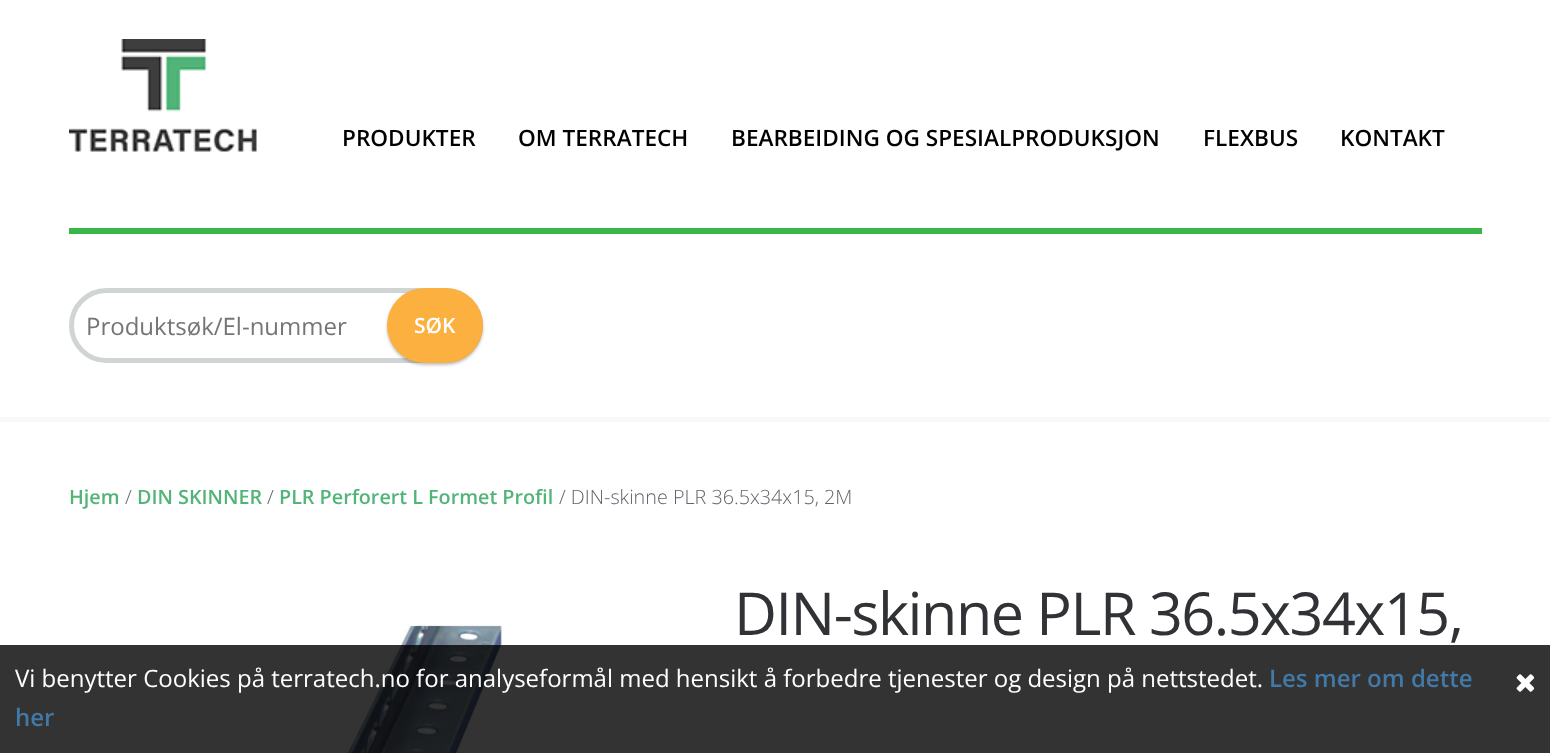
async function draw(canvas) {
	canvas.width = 1550;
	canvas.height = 753;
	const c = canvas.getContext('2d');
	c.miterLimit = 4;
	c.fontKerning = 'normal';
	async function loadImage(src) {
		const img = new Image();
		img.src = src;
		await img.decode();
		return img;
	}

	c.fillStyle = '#fff';
	c.fillRect(0, 0, 1550, 753);
	c.fillStyle = '#f9f9f9';
	c.fillRect(0, 417, 1550, 5);
	c.drawImage(await loadImage('img1.png'), 69, 39, 188, 113);
	c.font = '600 22.6px Open Sans';
	c.fillStyle = '#000';
	for (const [text, x, y] of [
		['PRODUKTER', 342, 146],
		['OM TERRATECH', 518, 146],
		['BEARBEIDING OG SPESIALPRODUKSJON', 731, 146],
		['FLEXBUS', 1203, 146],
		['KONTAKT', 1340, 146],
	]) {
		c.fillText(text, x, y);
	}
	c.fillStyle = '#39b54a';
	c.fillRect(69, 228, 1413, 6);
	c.beginPath();
	c.roundRect(71.5, 290.5, 409, 70, 35);
	c.strokeStyle = '#d1d4d4';
	c.lineWidth = 5;
	c.stroke();
	c.font = '24px Open Sans';
	c.fillStyle = '#757575';
	c.fillText('Produktsøk/El-nummer', 86, 335);
	c.fillStyle = '#00000040';
	c.filter = 'blur(1.5px)';
	c.beginPath();
	c.roundRect(387, 290, 96, 75, 37.5);
	c.fill();
	c.filter = 'none';
	c.fillStyle = '#fbb040';
	c.beginPath();
	c.roundRect(387, 288, 96, 75, 37.5);
	c.fill();
	c.font = '600 21px Open Sans';
	c.fillStyle = '#fff';
	c.fillText('SØK', 414, 333);
	c.font = '600 19.75px Open Sans';
	c.fillStyle = '#52b478';
	c.fillText('Hjem', 69, 504);
	c.font = '300 19.75px Open Sans';
	c.fillStyle = '#60646c';
	c.fillText('/', 125, 504);
	c.font = '600 19.75px Open Sans';
	c.fillStyle = '#52b478';
	c.fillText('DIN SKINNER', 137, 504);
	c.font = '300 19.75px Open Sans';
	c.fillStyle = '#60646c';
	c.fillText('/', 267, 504);
	c.font = '600 19.75px Open Sans';
	c.fillStyle = '#52b478';
	c.fillText('PLR Perforert L Formet Profil', 279, 504);
	c.font = '300 19.75px Open Sans';
	c.fillStyle = '#60646c';
	c.fillText('/ DIN-skinne PLR 36.5x34x15, 2M', 559, 504);
	c.letterSpacing = '-1.5px';
	c.font = '59.25px Open Sans';
	c.fillStyle = '#303236';
	c.fillText('DIN-skinne PLR 36.5x34x15,', 734, 635);
	c.drawImage(await loadImage('img2.png'), 347, 624, 156, 129);
	c.fillStyle = '#000000cc';
	c.fillRect(0, 645, 1550, 108);
	c.letterSpacing = '0px';
	c.font = '24px Open Sans';
	c.fillStyle = '#fff';
	c.fillText('Vi benytter Cookies på terratech.no for analyseformål med hensikt å forbedre tjenester og design på nettstedet.', 15, 687);
	c.font = '600 24px Open Sans';
	c.fillStyle = '#4279a6';
	c.fillText('Les mer om dette', 1269, 687);
	c.fillText('her', 15, 726);
	c.drawImage(await loadImage('img3.png'), 1516, 674, 19, 18);
}

draw(document.querySelector('canvas'));
